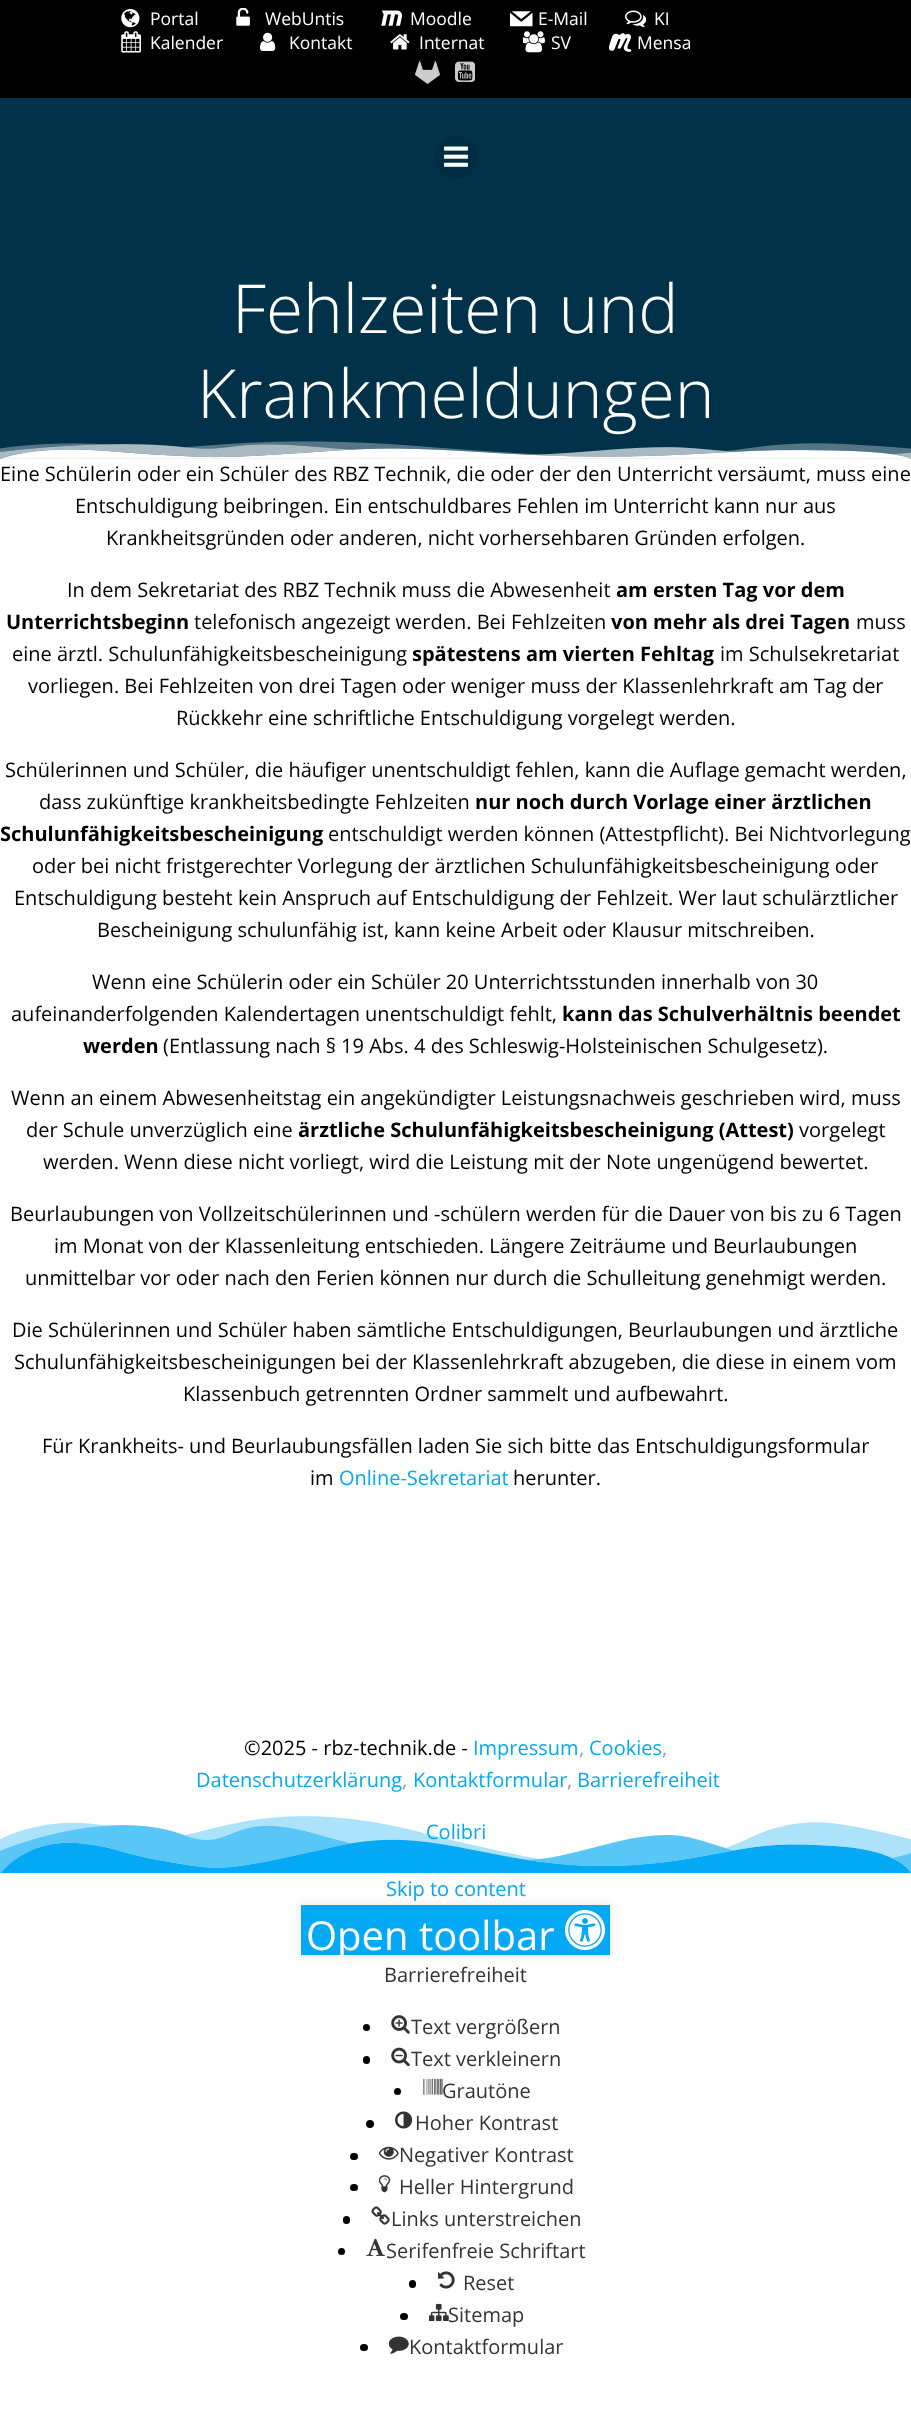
async function draw(canvas) {
	canvas.width = 911;
	canvas.height = 2423;
	const c = canvas.getContext('2d');
	c.miterLimit = 4;
	c.fontKerning = 'normal';
	async function loadImage(src) {
		const img = new Image();
		img.src = src;
		await img.decode();
		return img;
	}

	c.fillStyle = '#fff';
	c.fillRect(0, 0, 911, 2423);
	c.fillStyle = '#000';
	c.fillRect(0, 0, 911, 98);
	c.drawImage(await loadImage('img1.png'), 121, 9, 19, 19);
	c.font = '17.5px Open Sans';
	c.fillStyle = '#fff';
	c.fillText('Portal', 150, 25);
	c.drawImage(await loadImage('img2.png'), 236, 8, 14, 18);
	c.fillText('WebUntis', 265, 25);
	c.drawImage(await loadImage('img3.png'), 381, 10, 22, 16);
	c.fillText('Moodle', 410, 25);
	c.drawImage(await loadImage('img4.png'), 510, 11, 23, 16);
	c.fillText('E-Mail', 538, 25);
	c.drawImage(await loadImage('img5.png'), 625, 10, 21, 18);
	c.fillText('KI', 654, 25);
	c.drawImage(await loadImage('img6.png'), 121, 31, 20, 22);
	c.fillText('Kalender', 150, 49);
	c.drawImage(await loadImage('img7.png'), 260, 32, 16, 19);
	c.fillText('Kontakt', 289, 49);
	c.drawImage(await loadImage('img8.png'), 390, 34, 20, 16);
	c.fillText('Internat', 419, 49);
	c.drawImage(await loadImage('img9.png'), 523, 31, 22, 22);
	c.fillText('SV', 551, 49);
	c.drawImage(await loadImage('img10.png'), 609, 33, 22, 19);
	c.fillText('Mensa', 637, 49);
	c.drawImage(await loadImage('img11.png'), 415, 61, 25, 23);
	c.drawImage(await loadImage('img12.png'), 455, 61, 20, 21);
	c.fillStyle = '#013249';
	c.fillRect(0, 98, 911, 361);
	c.fillStyle = '#012d42';
	c.beginPath();
	c.arc(456.5, 157.5, 21.5, 0, 2 * Math.PI);
	c.fill();
	c.drawImage(await loadImage('img13.png'), 444, 146, 24, 21);
	c.font = '300 67.5px Open Sans';
	c.fillStyle = '#fff';
	c.fillText('Fehlzeiten und', 232, 333);
	c.fillText('Krankmeldungen', 197, 418);
	c.drawImage(await loadImage('img14.png'), 0, 441, 911, 18);
	c.font = '20px Open Sans';
	c.fillStyle = '#000';
	for (const [text, x, y] of [
		['Eine Schülerin oder ein Schüler des RBZ Technik, die oder der den Unterricht versäumt, muss eine', 0, 481],
		['Entschuldigung beibringen. Ein entschuldbares Fehlen im Unterricht kann nur aus', 75, 513],
		['Krankheitsgründen oder anderen, nicht vorhersehbaren Gründen erfolgen.', 106, 545],
		['In dem Sekretariat des RBZ Technik muss die Abwesenheit', 67, 597],
	]) {
		c.fillText(text, x, y);
	}
	c.font = 'bold 20px Open Sans';
	c.fillText('am ersten Tag vor dem', 616, 597);
	c.fillText('Unterrichtsbeginn', 6, 629);
	c.font = '20px Open Sans';
	c.fillText('telefonisch angezeigt werden. Bei Fehlzeiten', 194, 629);
	c.font = 'bold 20px Open Sans';
	c.fillText('von mehr als drei Tagen', 611, 629);
	c.font = '20px Open Sans';
	c.fillText('muss', 856, 629);
	c.fillText('eine ärztl. Schulunfähigkeitsbescheinigung', 12, 661);
	c.font = 'bold 20px Open Sans';
	c.fillText('spätestens am vierten Fehltag', 412, 661);
	c.font = '20px Open Sans';
	for (const [text, x, y] of [
		['im Schulsekretariat', 720, 661],
		['vorliegen. Bei Fehlzeiten von drei Tagen oder weniger muss der Klassenlehrkraft am Tag der', 28, 693],
		['Rückkehr eine schriftliche Entschuldigung vorgelegt werden.', 176, 725],
		['Schülerinnen und Schüler, die häufiger unentschuldigt fehlen, kann die Auflage gemacht werden,', 5, 777],
		['dass zukünftige krankheitsbedingte Fehlzeiten', 39, 809],
	]) {
		c.fillText(text, x, y);
	}
	c.font = 'bold 20px Open Sans';
	c.fillText('nur noch durch Vorlage einer ärztlichen', 475, 809);
	c.fillText('Schulunfähigkeitsbescheinigung', 0, 841);
	c.font = '20px Open Sans';
	for (const [text, x, y] of [
		['entschuldigt werden können (Attestpflicht). Bei Nichtvorlegung', 328, 841],
		['oder bei nicht fristgerechter Vorlegung der ärztlichen Schulunfähigkeitsbescheinigung oder', 32, 873],
		['Entschuldigung besteht kein Anspruch auf Entschuldigung der Fehlzeit. Wer laut schulärztlicher', 14, 905],
		['Bescheinigung schulunfähig ist, kann keine Arbeit oder Klausur mitschreiben.', 97, 937],
		['Wenn eine Schülerin oder ein Schüler 20 Unterrichtsstunden innerhalb von 30', 92, 989],
		['aufeinanderfolgenden Kalendertagen unentschuldigt fehlt,', 11, 1021],
	]) {
		c.fillText(text, x, y);
	}
	c.font = 'bold 20px Open Sans';
	c.fillText('kann das Schulverhältnis beendet', 562, 1021);
	c.fillText('werden', 83, 1053);
	c.font = '20px Open Sans';
	for (const [text, x, y] of [
		['(Entlassung nach § 19 Abs. 4 des Schleswig-Holsteinischen Schulgesetz).', 163, 1053],
		['Wenn an einem Abwesenheitstag ein angekündigter Leistungsnachweis geschrieben wird, muss', 11, 1105],
		['der Schule unverzüglich eine', 26, 1137],
	]) {
		c.fillText(text, x, y);
	}
	c.font = 'bold 20px Open Sans';
	c.fillText('ärztliche Schulunfähigkeitsbescheinigung (Attest)', 298, 1137);
	c.font = '20px Open Sans';
	for (const [text, x, y] of [
		['vorgelegt', 799, 1137],
		['werden. Wenn diese nicht vorliegt, wird die Leistung mit der Note ungenügend bewertet.', 43, 1169],
		['Beurlaubungen von Vollzeitschülerinnen und -schülern werden für die Dauer von bis zu 6 Tagen', 10, 1221],
		['im Monat von der Klassenleitung entschieden. Längere Zeiträume und Beurlaubungen', 54, 1253],
		['unmittelbar vor oder nach den Ferien können nur durch die Schulleitung genehmigt werden.', 25, 1285],
		['Die Schülerinnen und Schüler haben sämtliche Entschuldigungen, Beurlaubungen und ärztliche', 12, 1337],
		['Schulunfähigkeitsbescheinigungen bei der Klassenlehrkraft abzugeben, die diese in einem vom', 14, 1369],
		['Klassenbuch getrennten Ordner sammelt und aufbewahrt.', 183, 1401],
		['Für Krankheits- und Beurlaubungsfällen laden Sie sich bitte das Entschuldigungsformular', 42, 1453],
		['im', 310, 1485],
	]) {
		c.fillText(text, x, y);
	}
	c.fillStyle = '#03a9f4';
	c.fillText('Online-Sekretariat', 339, 1485);
	c.fillStyle = '#000';
	c.fillText('herunter.', 513, 1485);
	c.fillText('©2025 - rbz-technik.de -', 244, 1755);
	c.fillStyle = '#03a9f4';
	c.fillText('Impressum', 473, 1755);
	c.fillStyle = '#999';
	c.fillText(',', 579, 1755);
	c.fillStyle = '#03a9f4';
	c.fillText('Cookies', 589, 1755);
	c.fillStyle = '#999';
	c.fillText(',', 662, 1755);
	c.fillStyle = '#03a9f4';
	c.fillText('Datenschutzerklärung', 196, 1787);
	c.fillStyle = '#999';
	c.fillText(',', 402, 1787);
	c.fillStyle = '#03a9f4';
	c.fillText('Kontaktformular', 413, 1787);
	c.fillStyle = '#999';
	c.fillText(',', 567, 1787);
	c.fillStyle = '#03a9f4';
	c.fillText('Barrierefreiheit', 577, 1787);
	c.drawImage(await loadImage('img15.png'), 0, 1816, 911, 57);
	c.fillText('Colibri', 426, 1839);
	c.fillText('Skip to content', 386, 1896);
	c.fillStyle = '#0000001a';
	c.filter = 'blur(6px)';
	c.beginPath();
	c.rect(301, 1905, 309, 50);
	c.fill();
	c.filter = 'none';
	c.fillStyle = '#03a9f4';
	c.fillRect(301, 1905, 309, 50);
	c.font = '40px Open Sans';
	c.fillStyle = '#fff';
	c.fillText('Open toolbar', 306, 1950);
	c.drawImage(await loadImage('img16.png'), 565, 1910, 40, 40);
	c.font = '20px Open Sans';
	c.fillStyle = '#333';
	c.fillText('Barrierefreiheit', 384, 1982);
	c.fillStyle = '#000';
	c.beginPath();
	c.arc(366.5, 2027.5, 3.5, 0, 2 * Math.PI);
	c.fill();
	c.drawImage(await loadImage('img17.png'), 391, 2015, 19, 19);
	c.fillStyle = '#333';
	c.fillText('Text vergrößern', 411, 2034);
	c.fillStyle = '#000';
	c.beginPath();
	c.roundRect(363, 2056, 7, 8, 3.5);
	c.fill();
	c.drawImage(await loadImage('img18.png'), 391, 2047, 19, 19);
	c.fillStyle = '#333';
	c.fillText('Text verkleinern', 411, 2066);
	c.fillStyle = '#000';
	c.beginPath();
	c.arc(397.5, 2091.5, 3.5, 0, 2 * Math.PI);
	c.fill();
	c.drawImage(await loadImage('img19.png'), 423, 2078, 20, 17);
	c.fillStyle = '#333';
	c.fillText('Grautöne', 442, 2098);
	c.fillStyle = '#000';
	c.beginPath();
	c.arc(370, 2124, 4, 0, 2 * Math.PI);
	c.fill();
	c.drawImage(await loadImage('img20.png'), 395, 2111, 18, 18);
	c.fillStyle = '#333';
	c.fillText('Hoher Kontrast', 415, 2130);
	c.fillStyle = '#000';
	c.beginPath();
	c.roundRect(350, 2153, 8, 7, 3.5);
	c.fill();
	c.drawImage(await loadImage('img21.png'), 379, 2146, 20, 14);
	c.fillStyle = '#333';
	c.fillText('Negativer Kontrast', 399, 2162);
	c.fillStyle = '#000';
	c.beginPath();
	c.roundRect(350, 2184, 8, 7, 3.5);
	c.fill();
	c.drawImage(await loadImage('img22.png'), 379, 2175, 12, 18);
	c.fillStyle = '#333';
	c.fillText('Heller Hintergrund', 399, 2194);
	c.fillStyle = '#000';
	c.beginPath();
	c.roundRect(343, 2216, 7, 8, 3.5);
	c.fill();
	c.drawImage(await loadImage('img23.png'), 371, 2206, 19, 19);
	c.fillStyle = '#333';
	c.fillText('Links unterstreichen', 391, 2226);
	c.fillStyle = '#000';
	c.beginPath();
	c.arc(341.5, 2251.5, 3.5, 0, 2 * Math.PI);
	c.fill();
	c.drawImage(await loadImage('img24.png'), 366, 2238, 19, 19);
	c.fillStyle = '#333';
	c.fillText('Serifenfreie Schriftart', 386, 2258);
	c.fillStyle = '#000';
	c.beginPath();
	c.roundRect(409, 2280, 7, 8, 3.5);
	c.fill();
	c.drawImage(await loadImage('img25.png'), 438, 2271, 17, 18);
	c.fillStyle = '#333';
	c.fillText('Reset', 463, 2290);
	c.fillStyle = '#000';
	c.beginPath();
	c.roundRect(400, 2313, 8, 7, 3.5);
	c.fill();
	c.drawImage(await loadImage('img26.png'), 429, 2303, 20, 19);
	c.fillStyle = '#333';
	c.fillText('Sitemap', 448, 2322);
	c.fillStyle = '#000';
	c.beginPath();
	c.roundRect(360, 2344, 8, 7, 3.5);
	c.fill();
	c.drawImage(await loadImage('img27.png'), 389, 2336, 20, 18);
	c.fillStyle = '#333';
	c.fillText('Kontaktformular', 409, 2354);
}

draw(document.querySelector('canvas'));
